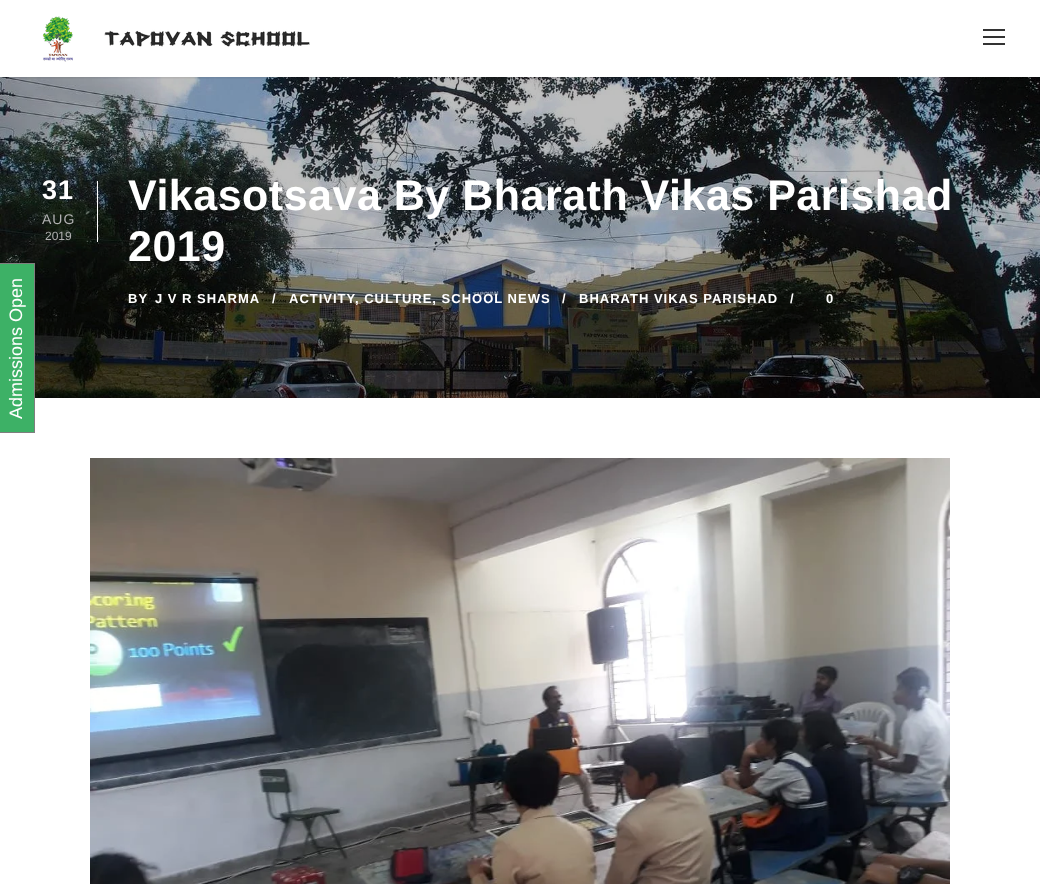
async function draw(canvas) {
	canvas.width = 1040;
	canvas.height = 884;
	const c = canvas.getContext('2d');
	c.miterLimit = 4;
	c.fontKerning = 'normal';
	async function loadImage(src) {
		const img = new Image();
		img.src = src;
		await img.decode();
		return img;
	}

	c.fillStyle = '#fff';
	c.fillRect(0, 0, 1040, 884);
	c.drawImage(await loadImage('img2.png'), 0, 77, 1040, 321);
	c.save();
	c.beginPath();
	c.rect(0, 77, 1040, 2);
	c.clip();
	c.fillStyle = '#0000001a';
	c.filter = 'blur(1px)';
	c.beginPath();
	c.rect(0, 1, 1040, 77);
	c.fill();
	c.filter = 'none';
	c.restore();
	c.drawImage(await loadImage('img1.png'), 42, 16, 268, 46);
	for (const [x, y, w, h, color] of [
		[983, 29, 22, 2, '#333'],
		[983, 36, 22, 2, '#333'],
		[983, 43, 22, 2, '#333'],
		[97, 181, 1, 61, '#fff'],
	]) {
		c.fillStyle = color;
		c.fillRect(x, y, w, h);
	}
	c.letterSpacing = '1px';
	c.font = 'bold 27px Liberation Sans';
	c.fillText('31', 42, 199);
	c.font = '14px Liberation Sans';
	c.fillStyle = '#b1b1b1';
	c.fillText('AUG', 42, 224);
	c.letterSpacing = '0px';
	c.font = '12px Liberation Sans';
	c.fillText('2019', 45, 240);
	c.letterSpacing = '0.5px';
	c.font = 'bold 43px Liberation Sans';
	c.fillStyle = '#fff';
	c.fillText('Vikasotsava By Bharath Vikas Parishad', 128, 210);
	c.fillText('2019', 128, 261);
	c.letterSpacing = '1px';
	c.font = 'bold 13px Liberation Sans';
	for (const [text, x, y] of [
		['BY', 128, 303],
		['J V R SHARMA', 155, 303],
		['/', 272, 303],
		['ACTIVITY', 289, 303],
		[', CULTURE, SCHOOL NEWS', 355, 303],
		['/', 562, 303],
		['BHARATH VIKAS PARISHAD', 579, 303],
		['/', 790, 303],
		['0', 826, 303],
	]) {
		c.fillText(text, x, y);
	}
	c.drawImage(await loadImage('img3.png'), 90, 458, 860, 426);
	for (const [x, y, w, h, color] of [
		[0, 264, 34, 168, '#3db166'],
		[0, 263, 35, 1, '#7f7f7f'],
		[34, 263, 1, 170, '#7f7f7f'],
		[0, 432, 35, 1, '#7f7f7f'],
	]) {
		c.fillStyle = color;
		c.fillRect(x, y, w, h);
	}
	c.letterSpacing = '0px';
	c.font = '18px Liberation Sans';
	c.fillStyle = '#fff';
	c.save();
	c.translate(22, 419);
	c.rotate(-90 * Math.PI / 180);
	c.fillText('Admissions Open', 0, 0);
	c.restore();
}

draw(document.querySelector('canvas'));
